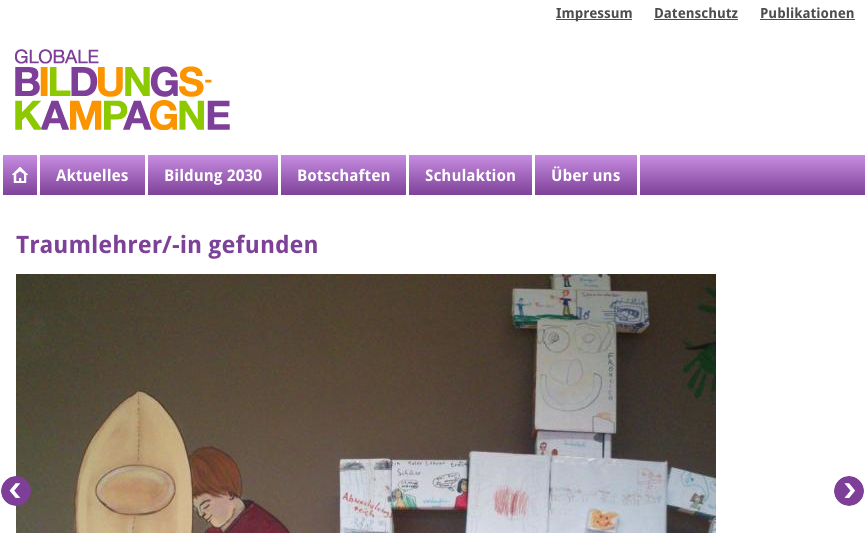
#include <cairo.h>
#include <math.h>
#include <stddef.h>


static void ink(cairo_t *ctx, unsigned color) {
    cairo_set_source_rgb(ctx, (color >> 16) / 255.0, (color >> 8 & 255) / 255.0, (color & 255) / 255.0);
}

static void paste(cairo_t *ctx, const char *path, double x, double y, double w, double h) {
    cairo_surface_t *image = cairo_image_surface_create_from_png(path);
    cairo_save(ctx);
    cairo_set_source_surface(ctx, image, x, y);
    cairo_rectangle(ctx, x, y, w, h);
    cairo_fill(ctx);
    cairo_restore(ctx);
    cairo_surface_destroy(image);
}

int main(void) {
    cairo_surface_t *surface = cairo_image_surface_create(CAIRO_FORMAT_RGB24, 865, 533);
    cairo_t *ctx = cairo_create(surface);
    cairo_font_options_t *options = cairo_font_options_create();
    cairo_font_options_set_hint_metrics(options, CAIRO_HINT_METRICS_OFF);
    cairo_font_options_set_hint_style(options, CAIRO_HINT_STYLE_NONE);
    cairo_set_font_options(ctx, options);
    cairo_set_miter_limit(ctx, 4);
    cairo_pattern_t *gradient;
    ink(ctx, 0xFFFFFF);
    cairo_paint(ctx);
    ink(ctx, 0x4D4D4D);
    cairo_rectangle(ctx, 556, 19, 76, 1);
    cairo_fill(ctx);
    cairo_select_font_face(ctx, "Droid Sans", CAIRO_FONT_SLANT_NORMAL, CAIRO_FONT_WEIGHT_BOLD);
    cairo_set_font_size(ctx, 14);
    cairo_move_to(ctx, 556, 18);
    cairo_show_text(ctx, "Impressum");
    cairo_move_to(ctx, 654, 18);
    cairo_show_text(ctx, "Datenschutz");
    cairo_rectangle(ctx, 654, 19, 84, 1);
    cairo_fill(ctx);
    cairo_move_to(ctx, 760, 18);
    cairo_show_text(ctx, "Publikationen");
    cairo_rectangle(ctx, 760, 19, 95, 1);
    cairo_fill(ctx);
    paste(ctx, "media/1.png", 15, 49, 215, 81);
    gradient = cairo_pattern_create_linear(433, 155, 433, 195);
    cairo_pattern_add_color_stop_rgba(gradient, 0, 0.78, 0.553, 0.882, 1);
    cairo_pattern_add_color_stop_rgba(gradient, 1, 0.494, 0.259, 0.6, 1);
    cairo_set_source(ctx, gradient);
    cairo_pattern_destroy(gradient);
    cairo_rectangle(ctx, 3, 155, 862, 40);
    cairo_fill(ctx);
    paste(ctx, "media/2.png", 12, 167, 16, 16);
    ink(ctx, 0xFFFFFF);
    cairo_rectangle(ctx, 37, 155, 3, 40);
    cairo_fill(ctx);
    cairo_rectangle(ctx, 145, 155, 3, 40);
    cairo_fill(ctx);
    cairo_set_font_size(ctx, 16);
    cairo_move_to(ctx, 56, 181);
    cairo_show_text(ctx, "Aktuelles");
    cairo_rectangle(ctx, 278, 155, 3, 40);
    cairo_fill(ctx);
    cairo_move_to(ctx, 164, 181);
    cairo_show_text(ctx, "Bildung 2030");
    cairo_rectangle(ctx, 406, 155, 3, 40);
    cairo_fill(ctx);
    cairo_move_to(ctx, 297, 181);
    cairo_show_text(ctx, "Botschaften");
    cairo_rectangle(ctx, 532, 155, 3, 40);
    cairo_fill(ctx);
    cairo_move_to(ctx, 425, 181);
    cairo_show_text(ctx, "Schulaktion");
    cairo_rectangle(ctx, 637, 155, 3, 40);
    cairo_fill(ctx);
    cairo_move_to(ctx, 551, 181);
    cairo_show_text(ctx, "Über uns");
    cairo_set_font_size(ctx, 24);
    ink(ctx, 0x7D4198);
    cairo_move_to(ctx, 16, 253);
    cairo_show_text(ctx, "Traumlehrer/-in gefunden");
    paste(ctx, "media/3.png", 16, 274, 700, 259);
    paste(ctx, "media/4.png", 1, 476, 30, 30);
    paste(ctx, "media/5.png", 834, 476, 30, 30);
    cairo_surface_write_to_png(surface, "image.png");
    cairo_font_options_destroy(options);
    cairo_destroy(ctx);
    cairo_surface_destroy(surface);
    return 0;
}
